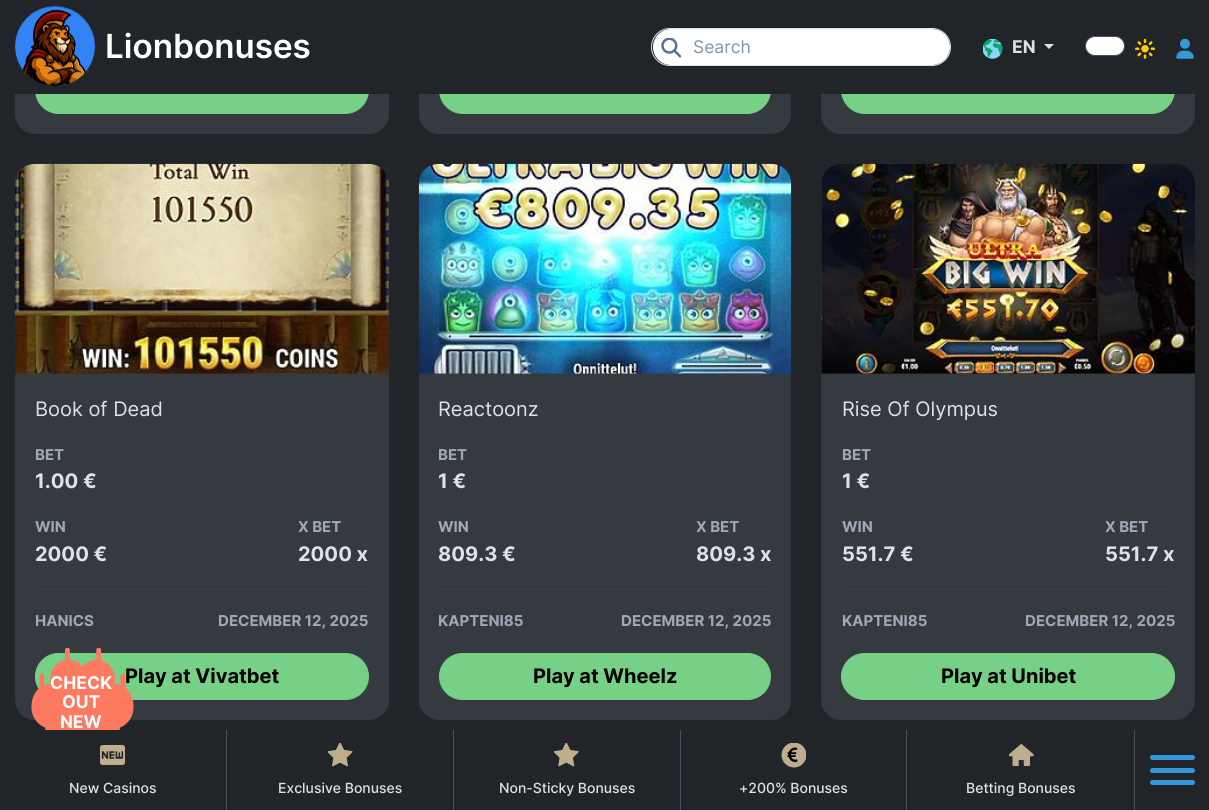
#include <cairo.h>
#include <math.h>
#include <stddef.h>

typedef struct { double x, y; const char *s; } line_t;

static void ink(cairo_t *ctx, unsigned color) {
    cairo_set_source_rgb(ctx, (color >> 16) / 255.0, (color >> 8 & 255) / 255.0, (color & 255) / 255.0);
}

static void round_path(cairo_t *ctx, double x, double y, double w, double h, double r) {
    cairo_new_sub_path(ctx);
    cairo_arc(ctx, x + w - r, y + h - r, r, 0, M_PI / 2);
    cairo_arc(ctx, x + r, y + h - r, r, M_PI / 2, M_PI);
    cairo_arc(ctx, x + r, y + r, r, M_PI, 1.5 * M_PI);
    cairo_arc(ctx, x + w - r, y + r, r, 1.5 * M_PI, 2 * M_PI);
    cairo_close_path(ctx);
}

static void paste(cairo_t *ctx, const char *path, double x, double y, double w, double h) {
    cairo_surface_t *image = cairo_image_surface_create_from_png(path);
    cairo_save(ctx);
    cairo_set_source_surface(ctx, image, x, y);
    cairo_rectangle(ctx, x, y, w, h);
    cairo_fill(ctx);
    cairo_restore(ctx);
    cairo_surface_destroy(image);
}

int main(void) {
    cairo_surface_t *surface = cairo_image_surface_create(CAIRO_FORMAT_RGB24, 1209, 810);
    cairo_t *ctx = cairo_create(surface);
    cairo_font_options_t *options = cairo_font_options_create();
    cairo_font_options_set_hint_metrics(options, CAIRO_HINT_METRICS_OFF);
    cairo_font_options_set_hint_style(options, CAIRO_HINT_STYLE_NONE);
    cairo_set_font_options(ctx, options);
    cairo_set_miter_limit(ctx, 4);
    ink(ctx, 0x212529);
    cairo_paint(ctx);
    ink(ctx, 0x343A40);
    round_path(ctx, 15, -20, 374, 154, 20);
    cairo_fill(ctx);
    ink(ctx, 0x76D085);
    round_path(ctx, 35.5, 66.5, 333, 47, 23.5);
    cairo_fill_preserve(ctx);
    cairo_set_line_width(ctx, 1);
    cairo_stroke(ctx);
    ink(ctx, 0x343A40);
    round_path(ctx, 419, -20, 372, 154, 20);
    cairo_fill(ctx);
    ink(ctx, 0x76D085);
    round_path(ctx, 439.5, 66.5, 331, 47, 23.5);
    cairo_fill_preserve(ctx);
    cairo_stroke(ctx);
    ink(ctx, 0x343A40);
    round_path(ctx, 821, -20, 374, 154, 20);
    cairo_fill(ctx);
    ink(ctx, 0x76D085);
    round_path(ctx, 841.5, 66.5, 333, 47, 23.5);
    cairo_fill_preserve(ctx);
    cairo_stroke(ctx);
    ink(ctx, 0x212529);
    cairo_rectangle(ctx, 15, 0, 1180, 93);
    cairo_fill(ctx);
    ink(ctx, 0x1F2327);
    cairo_rectangle(ctx, 15, 93, 1180, 1);
    cairo_fill(ctx);
    paste(ctx, "media/1.png", 15, 6, 80, 81);
    cairo_select_font_face(ctx, "Inter SemiBold", CAIRO_FONT_SLANT_NORMAL, CAIRO_FONT_WEIGHT_NORMAL);
    cairo_set_font_size(ctx, 33.25);
    ink(ctx, 0xFFFFFF);
    cairo_move_to(ctx, 105, 58);
    cairo_show_text(ctx, "Lionbonuses");
    round_path(ctx, 653, 29, 297, 36, 18);
    cairo_fill(ctx);
    round_path(ctx, 651.5, 28.5, 299, 37, 18.5);
    ink(ctx, 0xDEE2E6);
    cairo_stroke(ctx);
    paste(ctx, "media/2.png", 661, 38, 20, 20);
    cairo_select_font_face(ctx, "Inter", CAIRO_FONT_SLANT_NORMAL, CAIRO_FONT_WEIGHT_NORMAL);
    cairo_set_font_size(ctx, 17.5);
    ink(ctx, 0x8395AD);
    cairo_move_to(ctx, 693, 53);
    cairo_show_text(ctx, "Search");
    paste(ctx, "media/3.png", 983, 39, 20, 20);
    cairo_select_font_face(ctx, "Inter", CAIRO_FONT_SLANT_NORMAL, CAIRO_FONT_WEIGHT_BOLD);
    ink(ctx, 0xDEE2E6);
    cairo_move_to(ctx, 1012, 53);
    cairo_show_text(ctx, "EN");
    cairo_new_path(ctx);
    cairo_move_to(ctx, 1044, 44);
    cairo_line_to(ctx, 1054, 44);
    cairo_line_to(ctx, 1049, 49);
    cairo_close_path(ctx);
    cairo_fill(ctx);
    ink(ctx, 0xFFFFFF);
    round_path(ctx, 1085.5, 36.5, 39, 19, 9.5);
    cairo_fill_preserve(ctx);
    ink(ctx, 0x495057);
    cairo_stroke(ctx);
    paste(ctx, "media/4.png", 1135, 39, 20, 20);
    paste(ctx, "media/5.png", 1176, 39, 18, 20);
    ink(ctx, 0x343A40);
    round_path(ctx, 15, 164, 374, 556, 20);
    cairo_fill(ctx);
    paste(ctx, "media/6.png", 15, 163, 374, 211);
    cairo_select_font_face(ctx, "Inter", CAIRO_FONT_SLANT_NORMAL, CAIRO_FONT_WEIGHT_NORMAL);
    cairo_set_font_size(ctx, 20);
    ink(ctx, 0xDEE2E6);
    cairo_move_to(ctx, 35, 416);
    cairo_show_text(ctx, "Book of Dead");
    cairo_select_font_face(ctx, "Inter", CAIRO_FONT_SLANT_NORMAL, CAIRO_FONT_WEIGHT_BOLD);
    cairo_set_font_size(ctx, 15);
    ink(ctx, 0xA0A8B6);
    cairo_move_to(ctx, 35, 460);
    cairo_show_text(ctx, "BET");
    cairo_set_font_size(ctx, 20);
    ink(ctx, 0xDEE2E6);
    cairo_move_to(ctx, 35, 488);
    cairo_show_text(ctx, "1.00 €");
    cairo_set_font_size(ctx, 15);
    ink(ctx, 0xA0A8B6);
    cairo_move_to(ctx, 35, 532);
    cairo_show_text(ctx, "WIN");
    cairo_set_font_size(ctx, 20);
    ink(ctx, 0xDEE2E6);
    cairo_move_to(ctx, 35, 561);
    cairo_show_text(ctx, "2000 €");
    cairo_set_font_size(ctx, 15);
    ink(ctx, 0xA0A8B6);
    cairo_move_to(ctx, 298, 532);
    cairo_show_text(ctx, "X BET");
    cairo_set_font_size(ctx, 20);
    ink(ctx, 0xDEE2E6);
    cairo_move_to(ctx, 298, 561);
    cairo_show_text(ctx, "2000 x");
    ink(ctx, 0x394046);
    cairo_rectangle(ctx, 35, 589, 334, 1);
    cairo_fill(ctx);
    cairo_set_font_size(ctx, 15);
    ink(ctx, 0xA0A8B6);
    cairo_move_to(ctx, 35, 626);
    cairo_show_text(ctx, "HANICS");
    cairo_move_to(ctx, 218, 626);
    cairo_show_text(ctx, "DECEMBER 12, 2025");
    ink(ctx, 0x76D085);
    round_path(ctx, 35.5, 653.5, 333, 46, 23);
    cairo_fill_preserve(ctx);
    cairo_stroke(ctx);
    cairo_set_font_size(ctx, 20);
    ink(ctx, 0x000000);
    cairo_move_to(ctx, 125, 683);
    cairo_show_text(ctx, "Play at Vivatbet");
    ink(ctx, 0x343A40);
    round_path(ctx, 419, 164, 372, 556, 20);
    cairo_fill(ctx);
    paste(ctx, "media/7.png", 418, 163, 374, 211);
    cairo_select_font_face(ctx, "Inter", CAIRO_FONT_SLANT_NORMAL, CAIRO_FONT_WEIGHT_NORMAL);
    ink(ctx, 0xDEE2E6);
    cairo_move_to(ctx, 438, 416);
    cairo_show_text(ctx, "Reactoonz");
    cairo_select_font_face(ctx, "Inter", CAIRO_FONT_SLANT_NORMAL, CAIRO_FONT_WEIGHT_BOLD);
    cairo_set_font_size(ctx, 15);
    ink(ctx, 0xA0A8B6);
    cairo_move_to(ctx, 438, 460);
    cairo_show_text(ctx, "BET");
    cairo_set_font_size(ctx, 20);
    ink(ctx, 0xDEE2E6);
    cairo_move_to(ctx, 438, 488);
    cairo_show_text(ctx, "1 €");
    cairo_set_font_size(ctx, 15);
    ink(ctx, 0xA0A8B6);
    cairo_move_to(ctx, 438, 532);
    cairo_show_text(ctx, "WIN");
    cairo_set_font_size(ctx, 20);
    ink(ctx, 0xDEE2E6);
    cairo_move_to(ctx, 438, 561);
    cairo_show_text(ctx, "809.3 €");
    cairo_set_font_size(ctx, 15);
    ink(ctx, 0xA0A8B6);
    cairo_move_to(ctx, 696, 532);
    cairo_show_text(ctx, "X BET");
    cairo_set_font_size(ctx, 20);
    ink(ctx, 0xDEE2E6);
    cairo_move_to(ctx, 696, 561);
    cairo_show_text(ctx, "809.3 x");
    ink(ctx, 0x394046);
    cairo_rectangle(ctx, 439, 589, 332, 1);
    cairo_fill(ctx);
    cairo_set_font_size(ctx, 15);
    ink(ctx, 0xA0A8B6);
    cairo_move_to(ctx, 438, 626);
    cairo_show_text(ctx, "KAPTENI85");
    cairo_move_to(ctx, 621, 626);
    cairo_show_text(ctx, "DECEMBER 12, 2025");
    ink(ctx, 0x76D085);
    round_path(ctx, 439.5, 653.5, 331, 46, 23);
    cairo_fill_preserve(ctx);
    cairo_stroke(ctx);
    cairo_set_font_size(ctx, 20);
    ink(ctx, 0x000000);
    cairo_move_to(ctx, 533, 683);
    cairo_show_text(ctx, "Play at Wheelz");
    ink(ctx, 0x343A40);
    round_path(ctx, 821, 164, 374, 556, 20);
    cairo_fill(ctx);
    paste(ctx, "media/8.png", 821, 163, 374, 211);
    cairo_select_font_face(ctx, "Inter", CAIRO_FONT_SLANT_NORMAL, CAIRO_FONT_WEIGHT_NORMAL);
    ink(ctx, 0xDEE2E6);
    cairo_move_to(ctx, 842, 416);
    cairo_show_text(ctx, "Rise Of Olympus");
    cairo_select_font_face(ctx, "Inter", CAIRO_FONT_SLANT_NORMAL, CAIRO_FONT_WEIGHT_BOLD);
    cairo_set_font_size(ctx, 15);
    ink(ctx, 0xA0A8B6);
    cairo_move_to(ctx, 842, 460);
    cairo_show_text(ctx, "BET");
    cairo_set_font_size(ctx, 20);
    ink(ctx, 0xDEE2E6);
    cairo_move_to(ctx, 842, 488);
    cairo_show_text(ctx, "1 €");
    cairo_set_font_size(ctx, 15);
    ink(ctx, 0xA0A8B6);
    cairo_move_to(ctx, 842, 532);
    cairo_show_text(ctx, "WIN");
    cairo_set_font_size(ctx, 20);
    ink(ctx, 0xDEE2E6);
    cairo_move_to(ctx, 842, 561);
    cairo_show_text(ctx, "551.7 €");
    cairo_set_font_size(ctx, 15);
    ink(ctx, 0xA0A8B6);
    cairo_move_to(ctx, 1105, 532);
    cairo_show_text(ctx, "X BET");
    cairo_set_font_size(ctx, 20);
    ink(ctx, 0xDEE2E6);
    cairo_move_to(ctx, 1105, 561);
    cairo_show_text(ctx, "551.7 x");
    ink(ctx, 0x394046);
    cairo_rectangle(ctx, 841, 589, 334, 1);
    cairo_fill(ctx);
    cairo_set_font_size(ctx, 15);
    ink(ctx, 0xA0A8B6);
    cairo_move_to(ctx, 842, 626);
    cairo_show_text(ctx, "KAPTENI85");
    cairo_move_to(ctx, 1025, 626);
    cairo_show_text(ctx, "DECEMBER 12, 2025");
    ink(ctx, 0x76D085);
    round_path(ctx, 841.5, 653.5, 333, 46, 23);
    cairo_fill_preserve(ctx);
    cairo_stroke(ctx);
    cairo_set_font_size(ctx, 20);
    ink(ctx, 0x000000);
    cairo_move_to(ctx, 941, 683);
    cairo_show_text(ctx, "Play at Unibet");
    paste(ctx, "media/9.png", 31, 648, 103, 82);
    cairo_set_font_size(ctx, 17.5);
    ink(ctx, 0xFFFFFF);
    {
        static const line_t items[] = {
            {50, 689, "CHECK"},
            {62, 708, "OUT"},
            {60, 728, "NEW"},
        };
        for (size_t i = 0; i < sizeof items / sizeof *items; i++) {
            cairo_move_to(ctx, items[i].x, items[i].y);
            cairo_show_text(ctx, items[i].s);
        }
    }
    ink(ctx, 0x3498DB);
    round_path(ctx, 1150, 755, 45, 5, 2.5);
    cairo_fill(ctx);
    round_path(ctx, 1150, 768, 45, 5, 2.5);
    cairo_fill(ctx);
    round_path(ctx, 1150, 780, 45, 5, 2.5);
    cairo_fill(ctx);
    ink(ctx, 0x495057);
    cairo_rectangle(ctx, 226, 730, 1, 80);
    cairo_fill(ctx);
    paste(ctx, "media/10.png", 100, 745, 25, 20);
    cairo_select_font_face(ctx, "Inter Medium", CAIRO_FONT_SLANT_NORMAL, CAIRO_FONT_WEIGHT_NORMAL);
    cairo_set_font_size(ctx, 14);
    ink(ctx, 0xDEE2E6);
    cairo_move_to(ctx, 69, 793);
    cairo_show_text(ctx, "New Casinos");
    ink(ctx, 0x495057);
    cairo_rectangle(ctx, 453, 730, 1, 80);
    cairo_fill(ctx);
    paste(ctx, "media/11.png", 328, 743, 25, 24);
    ink(ctx, 0xDEE2E6);
    cairo_move_to(ctx, 278, 793);
    cairo_show_text(ctx, "Exclusive Bonuses");
    ink(ctx, 0x495057);
    cairo_rectangle(ctx, 680, 730, 1, 80);
    cairo_fill(ctx);
    paste(ctx, "media/12.png", 554, 743, 25, 24);
    ink(ctx, 0xDEE2E6);
    cairo_move_to(ctx, 499, 793);
    cairo_show_text(ctx, "Non-Sticky Bonuses");
    ink(ctx, 0x495057);
    cairo_rectangle(ctx, 906, 730, 1, 80);
    cairo_fill(ctx);
    paste(ctx, "media/13.png", 781, 743, 25, 25);
    ink(ctx, 0xDEE2E6);
    cairo_move_to(ctx, 739, 793);
    cairo_show_text(ctx, "+200% Bonuses");
    ink(ctx, 0x495057);
    cairo_rectangle(ctx, 1134, 730, 1, 80);
    cairo_fill(ctx);
    paste(ctx, "media/14.png", 1009, 744, 25, 22);
    ink(ctx, 0xDEE2E6);
    cairo_move_to(ctx, 966, 793);
    cairo_show_text(ctx, "Betting Bonuses");
    cairo_surface_write_to_png(surface, "image.png");
    cairo_font_options_destroy(options);
    cairo_destroy(ctx);
    cairo_surface_destroy(surface);
    return 0;
}
